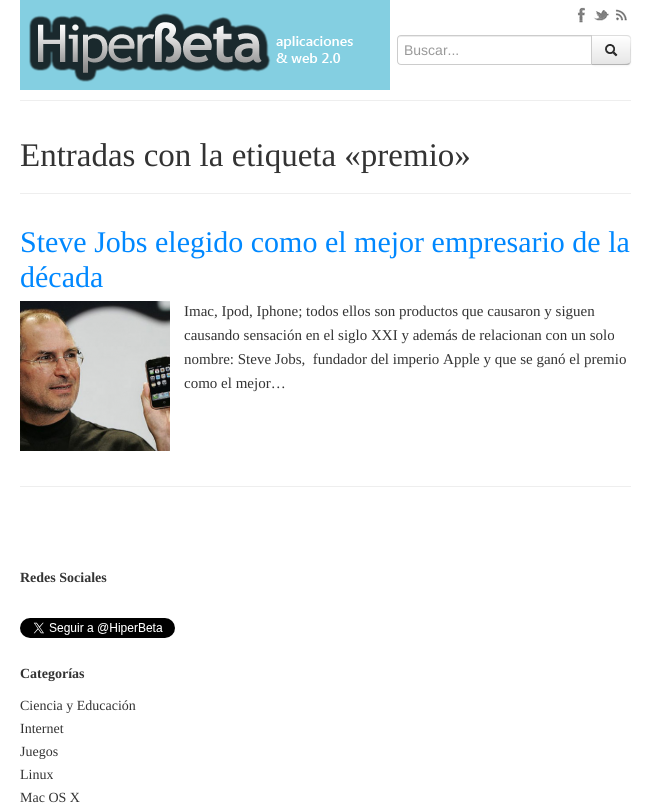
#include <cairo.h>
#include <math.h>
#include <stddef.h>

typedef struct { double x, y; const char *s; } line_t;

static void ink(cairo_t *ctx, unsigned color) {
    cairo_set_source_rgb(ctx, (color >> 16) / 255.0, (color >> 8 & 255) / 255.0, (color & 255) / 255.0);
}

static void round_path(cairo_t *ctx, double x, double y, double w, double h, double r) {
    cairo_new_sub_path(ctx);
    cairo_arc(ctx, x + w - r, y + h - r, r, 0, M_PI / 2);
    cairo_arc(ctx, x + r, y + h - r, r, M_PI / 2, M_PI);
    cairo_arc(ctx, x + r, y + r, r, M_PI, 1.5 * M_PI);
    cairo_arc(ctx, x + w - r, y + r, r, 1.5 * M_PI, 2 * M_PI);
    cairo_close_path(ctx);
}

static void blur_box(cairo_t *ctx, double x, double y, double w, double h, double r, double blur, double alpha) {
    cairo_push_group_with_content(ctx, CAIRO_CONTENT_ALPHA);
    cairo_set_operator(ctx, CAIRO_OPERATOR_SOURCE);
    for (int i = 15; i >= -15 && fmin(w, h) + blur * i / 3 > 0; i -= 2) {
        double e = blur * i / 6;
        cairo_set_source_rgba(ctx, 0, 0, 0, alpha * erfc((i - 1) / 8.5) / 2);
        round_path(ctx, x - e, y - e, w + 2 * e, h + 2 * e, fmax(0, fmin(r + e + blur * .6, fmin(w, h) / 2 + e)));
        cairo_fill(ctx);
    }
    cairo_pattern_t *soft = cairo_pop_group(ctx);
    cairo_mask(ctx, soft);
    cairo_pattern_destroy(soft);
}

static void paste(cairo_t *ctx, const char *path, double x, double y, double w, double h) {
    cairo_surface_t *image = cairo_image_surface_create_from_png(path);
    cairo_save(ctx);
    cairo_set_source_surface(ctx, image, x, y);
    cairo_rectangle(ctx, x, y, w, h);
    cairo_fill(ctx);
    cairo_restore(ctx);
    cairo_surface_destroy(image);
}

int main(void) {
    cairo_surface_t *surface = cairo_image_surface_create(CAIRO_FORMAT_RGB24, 651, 804);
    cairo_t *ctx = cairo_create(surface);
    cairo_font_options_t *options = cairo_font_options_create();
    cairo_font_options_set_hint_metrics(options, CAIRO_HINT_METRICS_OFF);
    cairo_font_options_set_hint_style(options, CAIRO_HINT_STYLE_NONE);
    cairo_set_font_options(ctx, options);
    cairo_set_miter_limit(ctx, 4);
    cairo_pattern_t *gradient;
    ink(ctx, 0xFFFFFF);
    cairo_paint(ctx);
    ink(ctx, 0x84CFE1);
    cairo_rectangle(ctx, 20, 0, 370, 90);
    cairo_fill(ctx);
    paste(ctx, "media/1.png", 29, 13, 324, 69);
    paste(ctx, "media/2.png", 577, 7, 8, 16);
    paste(ctx, "media/3.png", 593, 10, 16, 11);
    paste(ctx, "media/4.png", 615, 9, 12, 12);
    ink(ctx, 0x000000);
    blur_box(ctx, 591, 36, 40, 30, 4, 1, 0.05);
    ink(ctx, 0xF5F5F5);
    cairo_new_path(ctx);
    cairo_move_to(ctx, 591, 35);
    cairo_line_to(ctx, 627, 35);
    cairo_curve_to(ctx, 629, 35, 631, 37, 631, 39);
    cairo_line_to(ctx, 631, 61);
    cairo_curve_to(ctx, 631, 63, 629, 65, 627, 65);
    cairo_line_to(ctx, 591, 65);
    cairo_close_path(ctx);
    cairo_fill(ctx);
    cairo_save(ctx);
    cairo_new_path(ctx);
    cairo_move_to(ctx, 591, 35);
    cairo_line_to(ctx, 627, 35);
    cairo_curve_to(ctx, 629, 35, 631, 37, 631, 39);
    cairo_line_to(ctx, 631, 61);
    cairo_curve_to(ctx, 631, 63, 629, 65, 627, 65);
    cairo_line_to(ctx, 591, 65);
    cairo_close_path(ctx);
    cairo_clip(ctx);
    gradient = cairo_pattern_create_linear(611, 36, 611, 64);
    cairo_pattern_add_color_stop_rgba(gradient, 0, 1, 1, 1, 1);
    cairo_pattern_add_color_stop_rgba(gradient, 1, 0.902, 0.902, 0.902, 1);
    cairo_set_source(ctx, gradient);
    cairo_pattern_destroy(gradient);
    cairo_rectangle(ctx, 592, 36, 39, 28);
    cairo_fill(ctx);
    cairo_restore(ctx);
    cairo_set_source_rgba(ctx, 0, 0, 0, 0.1);
    cairo_new_path(ctx);
    cairo_move_to(ctx, 591, 35);
    cairo_line_to(ctx, 592, 36);
    cairo_line_to(ctx, 621, 36);
    cairo_curve_to(ctx, 625.5, 36, 628, 36, 629, 37);
    cairo_line_to(ctx, 630, 36);
    cairo_curve_to(ctx, 629, 35.5, 628, 35, 627, 35);
    cairo_close_path(ctx);
    cairo_fill(ctx);
    cairo_new_path(ctx);
    cairo_move_to(ctx, 631, 61);
    cairo_line_to(ctx, 631, 39);
    cairo_curve_to(ctx, 631, 38, 630.5, 37, 630, 36);
    cairo_line_to(ctx, 629, 37);
    cairo_curve_to(ctx, 630, 37.5, 630, 38.5, 630.5, 39);
    cairo_line_to(ctx, 630, 50);
    cairo_line_to(ctx, 630.5, 61);
    cairo_curve_to(ctx, 630, 61.5, 630, 62.5, 629, 63);
    cairo_line_to(ctx, 630, 64);
    cairo_curve_to(ctx, 630.5, 63, 631, 62, 631, 61);
    cairo_close_path(ctx);
    cairo_fill(ctx);
    ink(ctx, 0xB3B3B3);
    cairo_new_path(ctx);
    cairo_move_to(ctx, 627, 65);
    cairo_curve_to(ctx, 628, 65, 629, 64.5, 630, 64);
    cairo_line_to(ctx, 629, 63);
    cairo_curve_to(ctx, 628, 64, 625.5, 64, 621, 64);
    cairo_line_to(ctx, 592, 64);
    cairo_line_to(ctx, 591, 65);
    cairo_close_path(ctx);
    cairo_fill(ctx);
    ink(ctx, 0xFFFFFF);
    cairo_new_path(ctx);
    cairo_move_to(ctx, 401, 35);
    cairo_line_to(ctx, 592, 35);
    cairo_line_to(ctx, 592, 65);
    cairo_line_to(ctx, 401, 65);
    cairo_curve_to(ctx, 399, 65, 397, 63, 397, 61);
    cairo_line_to(ctx, 397, 39);
    cairo_curve_to(ctx, 397, 37, 399, 35, 401, 35);
    cairo_close_path(ctx);
    cairo_fill(ctx);
    ink(ctx, 0xECECEC);
    cairo_new_path(ctx);
    cairo_move_to(ctx, 401, 37);
    cairo_line_to(ctx, 591, 37);
    cairo_line_to(ctx, 591, 36);
    cairo_line_to(ctx, 401, 36);
    cairo_curve_to(ctx, 399, 36, 398, 38, 398, 40);
    cairo_curve_to(ctx, 398, 38, 399, 37, 401, 37);
    cairo_close_path(ctx);
    cairo_fill(ctx);
    cairo_new_path(ctx);
    cairo_move_to(ctx, 401, 35.5);
    cairo_line_to(ctx, 591.5, 35.5);
    cairo_line_to(ctx, 591.5, 64.5);
    cairo_line_to(ctx, 401, 64.5);
    cairo_curve_to(ctx, 399, 64.5, 397.5, 63, 397.5, 61);
    cairo_line_to(ctx, 397.5, 39);
    cairo_curve_to(ctx, 397.5, 37, 399, 35.5, 401, 35.5);
    cairo_close_path(ctx);
    ink(ctx, 0xCCCCCC);
    cairo_set_line_width(ctx, 1);
    cairo_stroke(ctx);
    cairo_select_font_face(ctx, "Liberation Sans", CAIRO_FONT_SLANT_NORMAL, CAIRO_FONT_WEIGHT_NORMAL);
    cairo_set_font_size(ctx, 14);
    ink(ctx, 0x999999);
    cairo_move_to(ctx, 404, 55);
    cairo_show_text(ctx, "Buscar...");
    paste(ctx, "media/5.png", 605, 44, 13, 13);
    ink(ctx, 0xEEEEEE);
    cairo_rectangle(ctx, 20, 100, 611, 1);
    cairo_fill(ctx);
    cairo_rectangle(ctx, 20, 193, 611, 1);
    cairo_fill(ctx);
    cairo_select_font_face(ctx, "Liberation Serif", CAIRO_FONT_SLANT_NORMAL, CAIRO_FONT_WEIGHT_NORMAL);
    cairo_set_font_size(ctx, 33);
    ink(ctx, 0x333333);
    cairo_move_to(ctx, 20, 166);
    cairo_show_text(ctx, "Entradas con la etiqueta «premio»");
    cairo_set_font_size(ctx, 30);
    ink(ctx, 0x0088FF);
    cairo_move_to(ctx, 20, 252);
    cairo_show_text(ctx, "Steve Jobs elegido como el mejor empresario de la");
    cairo_move_to(ctx, 20, 287);
    cairo_show_text(ctx, "década");
    paste(ctx, "media/6.png", 20, 301, 150, 150);
    cairo_set_font_size(ctx, 15);
    ink(ctx, 0x333333);
    {
        static const line_t items[] = {
            {184, 316, "Imac, Ipod, Iphone; todos ellos son productos que causaron y siguen"},
            {184, 340, "causando sensación en el siglo XXI y además de relacionan con un solo"},
            {184, 364, "nombre: Steve Jobs,  fundador del imperio Apple y que se ganó el premio"},
            {184, 388, "como el mejor…"},
        };
        for (size_t i = 0; i < sizeof items / sizeof *items; i++) {
            cairo_move_to(ctx, items[i].x, items[i].y);
            cairo_show_text(ctx, items[i].s);
        }
    }
    ink(ctx, 0xEEEEEE);
    cairo_rectangle(ctx, 20, 486, 611, 1);
    cairo_fill(ctx);
    cairo_select_font_face(ctx, "Liberation Serif", CAIRO_FONT_SLANT_NORMAL, CAIRO_FONT_WEIGHT_BOLD);
    cairo_set_font_size(ctx, 14);
    ink(ctx, 0x333333);
    cairo_move_to(ctx, 20, 582);
    cairo_show_text(ctx, "Redes Sociales");
    paste(ctx, "media/7.png", 20, 618, 155, 20);
    cairo_move_to(ctx, 20, 678);
    cairo_show_text(ctx, "Categorías");
    cairo_select_font_face(ctx, "Liberation Serif", CAIRO_FONT_SLANT_NORMAL, CAIRO_FONT_WEIGHT_NORMAL);
    {
        static const line_t items[] = {
            {20, 710, "Ciencia y Educación"},
            {20, 733, "Internet"},
            {20, 756, "Juegos"},
            {20, 779, "Linux"},
            {20, 802, "Mac OS X"},
        };
        for (size_t i = 0; i < sizeof items / sizeof *items; i++) {
            cairo_move_to(ctx, items[i].x, items[i].y);
            cairo_show_text(ctx, items[i].s);
        }
    }
    cairo_surface_write_to_png(surface, "image.png");
    cairo_font_options_destroy(options);
    cairo_destroy(ctx);
    cairo_surface_destroy(surface);
    return 0;
}
